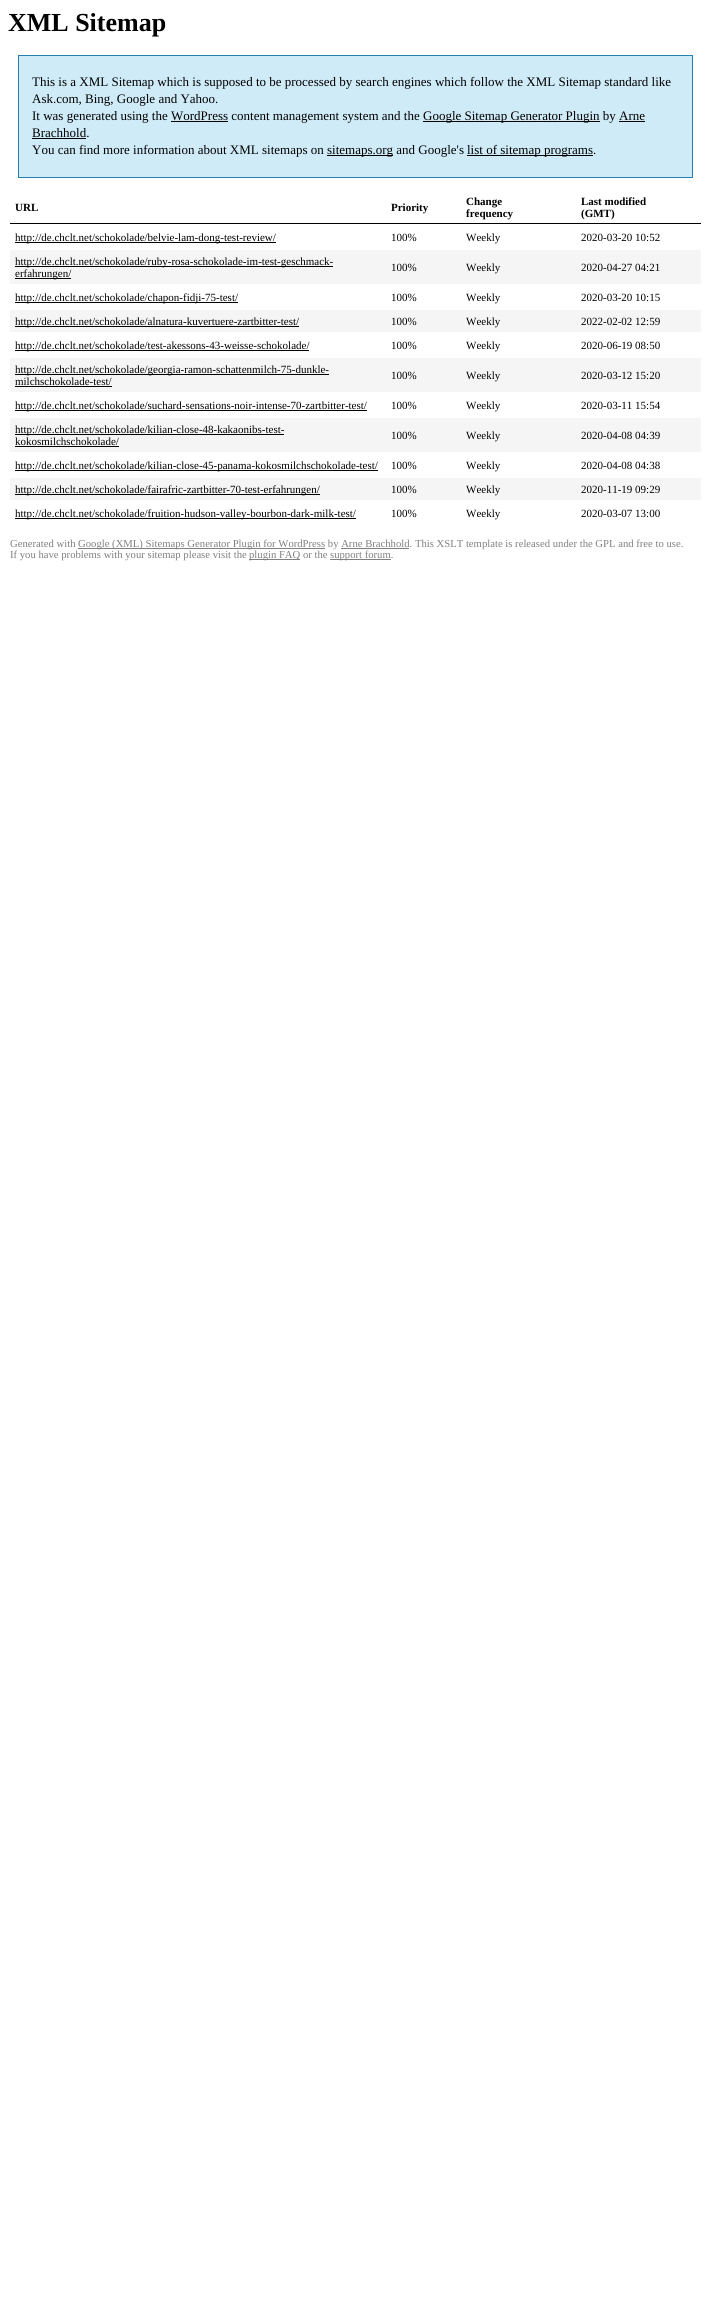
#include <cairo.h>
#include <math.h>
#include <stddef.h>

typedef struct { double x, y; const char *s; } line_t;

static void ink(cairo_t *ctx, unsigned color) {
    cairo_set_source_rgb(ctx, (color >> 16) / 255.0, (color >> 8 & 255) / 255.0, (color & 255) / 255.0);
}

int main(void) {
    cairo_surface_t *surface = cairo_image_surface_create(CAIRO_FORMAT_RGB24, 711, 2310);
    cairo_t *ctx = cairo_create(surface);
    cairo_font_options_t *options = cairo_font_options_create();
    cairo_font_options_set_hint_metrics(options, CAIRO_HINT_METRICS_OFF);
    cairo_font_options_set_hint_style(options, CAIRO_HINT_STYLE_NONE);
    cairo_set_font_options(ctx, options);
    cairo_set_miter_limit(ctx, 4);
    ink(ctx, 0xFFFFFF);
    cairo_paint(ctx);
    cairo_select_font_face(ctx, "Liberation Serif", CAIRO_FONT_SLANT_NORMAL, CAIRO_FONT_WEIGHT_BOLD);
    cairo_set_font_size(ctx, 26);
    ink(ctx, 0x000000);
    cairo_move_to(ctx, 8, 31);
    cairo_show_text(ctx, "XML Sitemap");
    ink(ctx, 0xCFEBF7);
    cairo_rectangle(ctx, 18.5, 55.5, 674, 122);
    cairo_fill_preserve(ctx);
    ink(ctx, 0x2580B2);
    cairo_set_line_width(ctx, 1);
    cairo_stroke(ctx);
    cairo_select_font_face(ctx, "Liberation Serif", CAIRO_FONT_SLANT_NORMAL, CAIRO_FONT_WEIGHT_NORMAL);
    cairo_set_font_size(ctx, 13);
    ink(ctx, 0x000000);
    {
        static const line_t items[] = {
            {32, 86, "This is a XML Sitemap which is supposed to be processed by search engines which follow the XML Sitemap standard like"},
            {32, 103, "Ask.com, Bing, Google and Yahoo."},
            {32, 120, "It was generated using the WordPress content management system and the"},
        };
        for (size_t i = 0; i < sizeof items / sizeof *items; i++) {
            cairo_move_to(ctx, items[i].x, items[i].y);
            cairo_show_text(ctx, items[i].s);
        }
    }
    cairo_rectangle(ctx, 423, 121, 177, 1);
    cairo_fill(ctx);
    cairo_move_to(ctx, 423, 120);
    cairo_show_text(ctx, "Google Sitemap Generator Plugin by Arne");
    cairo_rectangle(ctx, 171, 121, 57, 1);
    cairo_fill(ctx);
    cairo_move_to(ctx, 32, 137);
    cairo_show_text(ctx, "Brachhold.");
    cairo_rectangle(ctx, 619, 121, 26, 1);
    cairo_fill(ctx);
    cairo_rectangle(ctx, 32, 138, 54, 1);
    cairo_fill(ctx);
    cairo_move_to(ctx, 32, 154);
    cairo_show_text(ctx, "You can find more information about XML sitemaps on");
    cairo_rectangle(ctx, 327, 155, 66, 1);
    cairo_fill(ctx);
    cairo_move_to(ctx, 327, 154);
    cairo_show_text(ctx, "sitemaps.org and Google's");
    cairo_rectangle(ctx, 467, 155, 126, 1);
    cairo_fill(ctx);
    cairo_move_to(ctx, 467, 154);
    cairo_show_text(ctx, "list of sitemap programs.");
    cairo_rectangle(ctx, 10, 223, 691, 1);
    cairo_fill(ctx);
    cairo_select_font_face(ctx, "Liberation Serif", CAIRO_FONT_SLANT_NORMAL, CAIRO_FONT_WEIGHT_BOLD);
    cairo_set_font_size(ctx, 11);
    {
        static const line_t items[] = {
            {15, 211, "URL"},
            {391, 211, "Priority"},
            {466, 205, "Change"},
            {466, 217, "frequency"},
            {581, 205, "Last modified"},
            {581, 217, "(GMT)"},
        };
        for (size_t i = 0; i < sizeof items / sizeof *items; i++) {
            cairo_move_to(ctx, items[i].x, items[i].y);
            cairo_show_text(ctx, items[i].s);
        }
    }
    cairo_rectangle(ctx, 15, 242, 261, 1);
    cairo_fill(ctx);
    cairo_select_font_face(ctx, "Liberation Serif", CAIRO_FONT_SLANT_NORMAL, CAIRO_FONT_WEIGHT_NORMAL);
    {
        static const line_t items[] = {
            {15, 241, "http://de.chclt.net/schokolade/belvie-lam-dong-test-review/"},
            {391, 241, "100%"},
            {466, 241, "Weekly"},
            {581, 241, "2020-03-20 10:52"},
        };
        for (size_t i = 0; i < sizeof items / sizeof *items; i++) {
            cairo_move_to(ctx, items[i].x, items[i].y);
            cairo_show_text(ctx, items[i].s);
        }
    }
    ink(ctx, 0xF5F5F5);
    cairo_rectangle(ctx, 10, 250, 691, 34);
    cairo_fill(ctx);
    ink(ctx, 0x000000);
    cairo_rectangle(ctx, 15, 266, 318, 1);
    cairo_fill(ctx);
    cairo_move_to(ctx, 15, 265);
    cairo_show_text(ctx, "http://de.chclt.net/schokolade/ruby-rosa-schokolade-im-test-geschmack-");
    cairo_rectangle(ctx, 15, 278, 56, 1);
    cairo_fill(ctx);
    {
        static const line_t items[] = {
            {15, 277, "erfahrungen/"},
            {391, 271, "100%"},
            {466, 271, "Weekly"},
            {581, 271, "2020-04-27 04:21"},
        };
        for (size_t i = 0; i < sizeof items / sizeof *items; i++) {
            cairo_move_to(ctx, items[i].x, items[i].y);
            cairo_show_text(ctx, items[i].s);
        }
    }
    cairo_rectangle(ctx, 15, 302, 223, 1);
    cairo_fill(ctx);
    {
        static const line_t items[] = {
            {15, 301, "http://de.chclt.net/schokolade/chapon-fidji-75-test/"},
            {391, 301, "100%"},
            {466, 301, "Weekly"},
            {581, 301, "2020-03-20 10:15"},
        };
        for (size_t i = 0; i < sizeof items / sizeof *items; i++) {
            cairo_move_to(ctx, items[i].x, items[i].y);
            cairo_show_text(ctx, items[i].s);
        }
    }
    ink(ctx, 0xF5F5F5);
    cairo_rectangle(ctx, 10, 310, 691, 22);
    cairo_fill(ctx);
    ink(ctx, 0x000000);
    cairo_rectangle(ctx, 15, 326, 284, 1);
    cairo_fill(ctx);
    {
        static const line_t items[] = {
            {15, 325, "http://de.chclt.net/schokolade/alnatura-kuvertuere-zartbitter-test/"},
            {391, 325, "100%"},
            {466, 325, "Weekly"},
            {581, 325, "2022-02-02 12:59"},
        };
        for (size_t i = 0; i < sizeof items / sizeof *items; i++) {
            cairo_move_to(ctx, items[i].x, items[i].y);
            cairo_show_text(ctx, items[i].s);
        }
    }
    cairo_rectangle(ctx, 15, 350, 294, 1);
    cairo_fill(ctx);
    {
        static const line_t items[] = {
            {15, 349, "http://de.chclt.net/schokolade/test-akessons-43-weisse-schokolade/"},
            {391, 349, "100%"},
            {466, 349, "Weekly"},
            {581, 349, "2020-06-19 08:50"},
        };
        for (size_t i = 0; i < sizeof items / sizeof *items; i++) {
            cairo_move_to(ctx, items[i].x, items[i].y);
            cairo_show_text(ctx, items[i].s);
        }
    }
    ink(ctx, 0xF5F5F5);
    cairo_rectangle(ctx, 10, 358, 691, 34);
    cairo_fill(ctx);
    ink(ctx, 0x000000);
    cairo_rectangle(ctx, 15, 374, 314, 1);
    cairo_fill(ctx);
    cairo_move_to(ctx, 15, 373);
    cairo_show_text(ctx, "http://de.chclt.net/schokolade/georgia-ramon-schattenmilch-75-dunkle-");
    cairo_move_to(ctx, 15, 385);
    cairo_show_text(ctx, "milchschokolade-test/");
    cairo_rectangle(ctx, 15, 386, 97, 1);
    cairo_fill(ctx);
    {
        static const line_t items[] = {
            {391, 379, "100%"},
            {466, 379, "Weekly"},
            {581, 379, "2020-03-12 15:20"},
        };
        for (size_t i = 0; i < sizeof items / sizeof *items; i++) {
            cairo_move_to(ctx, items[i].x, items[i].y);
            cairo_show_text(ctx, items[i].s);
        }
    }
    cairo_rectangle(ctx, 15, 410, 352, 1);
    cairo_fill(ctx);
    {
        static const line_t items[] = {
            {15, 409, "http://de.chclt.net/schokolade/suchard-sensations-noir-intense-70-zartbitter-test/"},
            {391, 409, "100%"},
            {466, 409, "Weekly"},
            {581, 409, "2020-03-11 15:54"},
        };
        for (size_t i = 0; i < sizeof items / sizeof *items; i++) {
            cairo_move_to(ctx, items[i].x, items[i].y);
            cairo_show_text(ctx, items[i].s);
        }
    }
    ink(ctx, 0xF5F5F5);
    cairo_rectangle(ctx, 10, 418, 691, 34);
    cairo_fill(ctx);
    ink(ctx, 0x000000);
    cairo_rectangle(ctx, 15, 434, 269, 1);
    cairo_fill(ctx);
    cairo_move_to(ctx, 15, 433);
    cairo_show_text(ctx, "http://de.chclt.net/schokolade/kilian-close-48-kakaonibs-test-");
    cairo_move_to(ctx, 15, 445);
    cairo_show_text(ctx, "kokosmilchschokolade/");
    cairo_rectangle(ctx, 15, 446, 104, 1);
    cairo_fill(ctx);
    {
        static const line_t items[] = {
            {391, 439, "100%"},
            {466, 439, "Weekly"},
            {581, 439, "2020-04-08 04:39"},
        };
        for (size_t i = 0; i < sizeof items / sizeof *items; i++) {
            cairo_move_to(ctx, items[i].x, items[i].y);
            cairo_show_text(ctx, items[i].s);
        }
    }
    cairo_rectangle(ctx, 15, 470, 363, 1);
    cairo_fill(ctx);
    {
        static const line_t items[] = {
            {15, 469, "http://de.chclt.net/schokolade/kilian-close-45-panama-kokosmilchschokolade-test/"},
            {391, 469, "100%"},
            {466, 469, "Weekly"},
            {581, 469, "2020-04-08 04:38"},
        };
        for (size_t i = 0; i < sizeof items / sizeof *items; i++) {
            cairo_move_to(ctx, items[i].x, items[i].y);
            cairo_show_text(ctx, items[i].s);
        }
    }
    ink(ctx, 0xF5F5F5);
    cairo_rectangle(ctx, 10, 478, 691, 22);
    cairo_fill(ctx);
    ink(ctx, 0x000000);
    cairo_rectangle(ctx, 15, 494, 305, 1);
    cairo_fill(ctx);
    {
        static const line_t items[] = {
            {15, 493, "http://de.chclt.net/schokolade/fairafric-zartbitter-70-test-erfahrungen/"},
            {391, 493, "100%"},
            {466, 493, "Weekly"},
            {581, 493, "2020-11-19 09:29"},
        };
        for (size_t i = 0; i < sizeof items / sizeof *items; i++) {
            cairo_move_to(ctx, items[i].x, items[i].y);
            cairo_show_text(ctx, items[i].s);
        }
    }
    cairo_rectangle(ctx, 15, 518, 341, 1);
    cairo_fill(ctx);
    {
        static const line_t items[] = {
            {15, 517, "http://de.chclt.net/schokolade/fruition-hudson-valley-bourbon-dark-milk-test/"},
            {391, 517, "100%"},
            {466, 517, "Weekly"},
            {581, 517, "2020-03-07 13:00"},
        };
        for (size_t i = 0; i < sizeof items / sizeof *items; i++) {
            cairo_move_to(ctx, items[i].x, items[i].y);
            cairo_show_text(ctx, items[i].s);
        }
    }
    cairo_set_font_size(ctx, 10.67);
    ink(ctx, 0x808080);
    cairo_move_to(ctx, 10, 547);
    cairo_show_text(ctx, "Generated with");
    cairo_rectangle(ctx, 78, 548, 247, 1);
    cairo_fill(ctx);
    cairo_move_to(ctx, 78, 547);
    cairo_show_text(ctx, "Google (XML) Sitemaps Generator Plugin for WordPress by Arne Brachhold. This XSLT template is released under the GPL and free to use.");
    cairo_rectangle(ctx, 341, 548, 68, 1);
    cairo_fill(ctx);
    cairo_move_to(ctx, 10, 558);
    cairo_show_text(ctx, "If you have problems with your sitemap please visit the");
    cairo_rectangle(ctx, 249, 559, 51, 1);
    cairo_fill(ctx);
    cairo_move_to(ctx, 249, 558);
    cairo_show_text(ctx, "plugin FAQ or the");
    cairo_rectangle(ctx, 330, 559, 61, 1);
    cairo_fill(ctx);
    cairo_move_to(ctx, 330, 558);
    cairo_show_text(ctx, "support forum.");
    cairo_surface_write_to_png(surface, "image.png");
    cairo_font_options_destroy(options);
    cairo_destroy(ctx);
    cairo_surface_destroy(surface);
    return 0;
}
